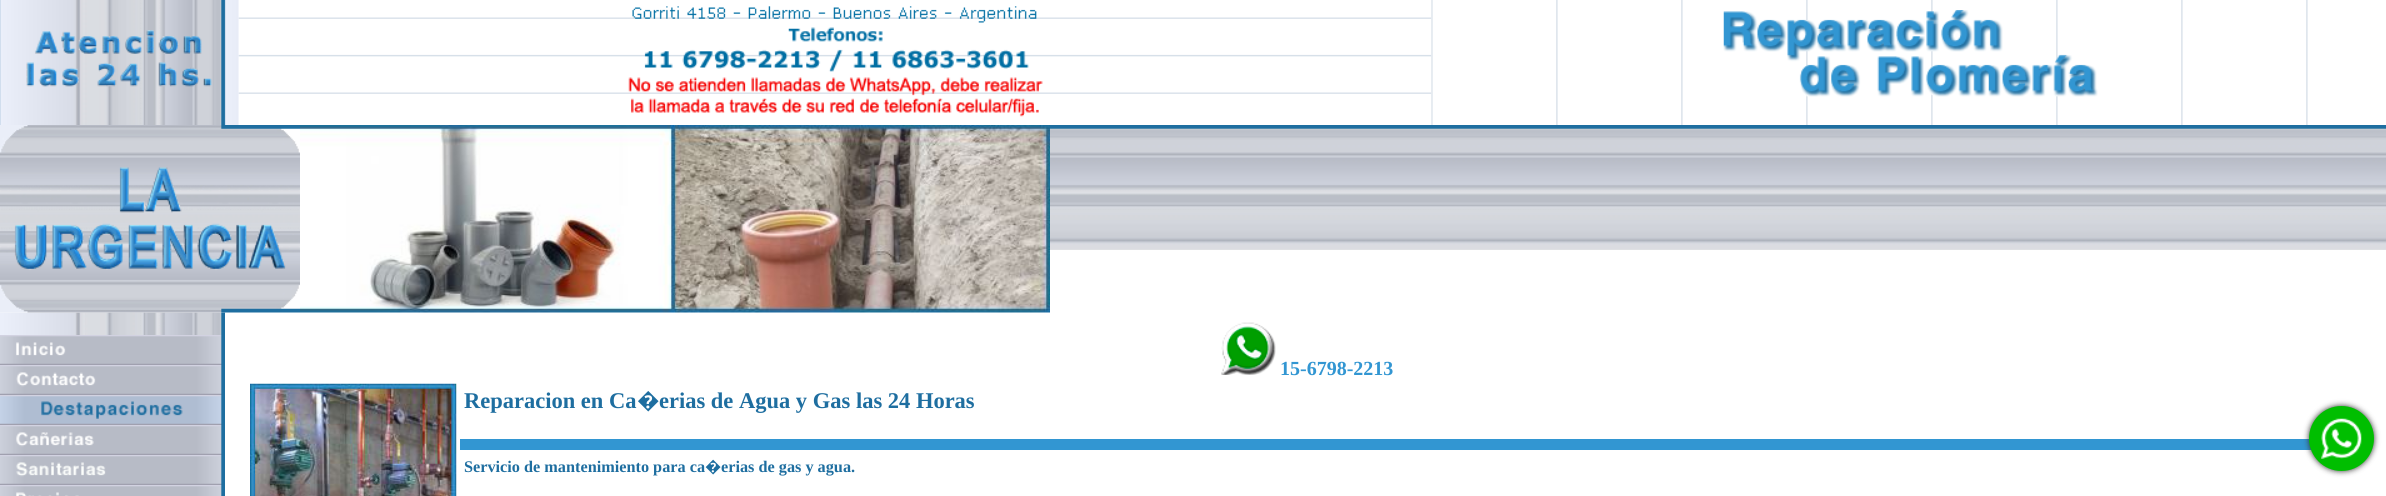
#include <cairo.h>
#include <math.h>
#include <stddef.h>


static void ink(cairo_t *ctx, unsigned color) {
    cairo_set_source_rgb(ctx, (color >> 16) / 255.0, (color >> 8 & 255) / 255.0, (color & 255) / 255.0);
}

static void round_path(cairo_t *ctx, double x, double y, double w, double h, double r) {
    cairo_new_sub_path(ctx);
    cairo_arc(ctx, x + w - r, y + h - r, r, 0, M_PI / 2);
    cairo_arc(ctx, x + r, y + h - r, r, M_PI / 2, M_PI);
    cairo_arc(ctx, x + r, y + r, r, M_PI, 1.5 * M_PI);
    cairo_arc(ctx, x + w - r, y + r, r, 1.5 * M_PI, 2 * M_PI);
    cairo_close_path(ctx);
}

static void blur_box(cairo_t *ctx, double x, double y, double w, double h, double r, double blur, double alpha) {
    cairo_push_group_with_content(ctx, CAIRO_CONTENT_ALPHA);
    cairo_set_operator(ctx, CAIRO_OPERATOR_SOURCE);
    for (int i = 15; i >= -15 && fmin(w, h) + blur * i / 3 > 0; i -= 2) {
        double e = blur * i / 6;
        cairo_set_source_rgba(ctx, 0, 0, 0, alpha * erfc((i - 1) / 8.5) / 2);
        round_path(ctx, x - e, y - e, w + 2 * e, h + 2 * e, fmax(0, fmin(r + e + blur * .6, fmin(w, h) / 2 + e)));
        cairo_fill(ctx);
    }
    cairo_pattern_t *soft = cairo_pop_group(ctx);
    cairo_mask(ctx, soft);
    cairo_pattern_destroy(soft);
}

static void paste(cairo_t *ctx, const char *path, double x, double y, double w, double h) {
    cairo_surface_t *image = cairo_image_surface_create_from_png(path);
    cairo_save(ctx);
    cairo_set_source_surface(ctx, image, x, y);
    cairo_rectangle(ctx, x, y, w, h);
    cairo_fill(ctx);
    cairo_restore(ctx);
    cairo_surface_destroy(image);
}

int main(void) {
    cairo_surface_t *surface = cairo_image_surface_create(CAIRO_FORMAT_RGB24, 2386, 496);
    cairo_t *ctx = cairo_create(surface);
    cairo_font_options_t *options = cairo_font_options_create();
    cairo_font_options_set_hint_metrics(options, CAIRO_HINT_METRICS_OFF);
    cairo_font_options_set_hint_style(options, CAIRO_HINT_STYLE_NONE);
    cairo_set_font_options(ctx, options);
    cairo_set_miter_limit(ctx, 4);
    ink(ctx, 0xFFFFFF);
    cairo_paint(ctx);
    paste(ctx, "media/1.png", 0, 0, 239, 125);
    paste(ctx, "media/2.png", 26, 30, 186, 57);
    paste(ctx, "media/3.png", 238, 0, 1194, 125);
    paste(ctx, "media/4.png", 628, 6, 415, 111);
    paste(ctx, "media/5.png", 1431, 0, 877, 125);
    paste(ctx, "media/6.png", 1723, 10, 375, 87);
    paste(ctx, "media/10.png", 0, 312, 225, 184);
    paste(ctx, "media/7.png", 0, 125, 300, 188);
    paste(ctx, "media/8.png", 1050, 125, 1336, 125);
    paste(ctx, "media/9.png", 300, 125, 750, 188);
    paste(ctx, "media/11.png", 0, 335, 222, 30);
    paste(ctx, "media/12.png", 0, 365, 222, 30);
    paste(ctx, "media/13.png", 0, 395, 222, 30);
    paste(ctx, "media/14.png", 0, 425, 222, 30);
    paste(ctx, "media/15.png", 0, 455, 222, 30);
    paste(ctx, "media/16.png", 0, 485, 222, 11);
    paste(ctx, "media/17.png", 1221, 322, 55, 53);
    cairo_select_font_face(ctx, "Liberation Serif", CAIRO_FONT_SLANT_NORMAL, CAIRO_FONT_WEIGHT_BOLD);
    cairo_set_font_size(ctx, 20);
    ink(ctx, 0x3296D2);
    cairo_move_to(ctx, 1280, 375);
    cairo_show_text(ctx, "15-6798-2213");
    paste(ctx, "media/18.png", 250, 383, 207, 113);
    cairo_set_font_size(ctx, 22.5);
    ink(ctx, 0x1E6EA0);
    cairo_move_to(ctx, 464, 408);
    cairo_show_text(ctx, "Reparacion en Ca");
    cairo_select_font_face(ctx, "Noto Sans", CAIRO_FONT_SLANT_NORMAL, CAIRO_FONT_WEIGHT_BOLD);
    cairo_move_to(ctx, 637, 408);
    cairo_show_text(ctx, "�");
    cairo_select_font_face(ctx, "Liberation Serif", CAIRO_FONT_SLANT_NORMAL, CAIRO_FONT_WEIGHT_BOLD);
    cairo_move_to(ctx, 659, 408);
    cairo_show_text(ctx, "erias de Agua y Gas las 24 Horas");
    ink(ctx, 0x3296D2);
    cairo_rectangle(ctx, 460, 439, 1852, 11);
    cairo_fill(ctx);
    cairo_set_font_size(ctx, 16.25);
    ink(ctx, 0x1E6EA0);
    cairo_move_to(ctx, 464, 472);
    cairo_show_text(ctx, "Servicio de mantenimiento para ca");
    cairo_select_font_face(ctx, "Noto Sans", CAIRO_FONT_SLANT_NORMAL, CAIRO_FONT_WEIGHT_BOLD);
    cairo_move_to(ctx, 705, 472);
    cairo_show_text(ctx, "�");
    cairo_select_font_face(ctx, "Liberation Serif", CAIRO_FONT_SLANT_NORMAL, CAIRO_FONT_WEIGHT_BOLD);
    cairo_move_to(ctx, 721, 472);
    cairo_show_text(ctx, "erias de gas y agua.");
    ink(ctx, 0x333333);
    blur_box(ctx, 2309, 406, 65, 65, 32.5, 3, 1);
    ink(ctx, 0x00BE00);
    cairo_arc(ctx, 2341.5, 438.5, 32.5, 0, 2 * M_PI);
    cairo_fill(ctx);
    paste(ctx, "media/19.png", 2321, 418, 41, 41);
    cairo_surface_write_to_png(surface, "image.png");
    cairo_font_options_destroy(options);
    cairo_destroy(ctx);
    cairo_surface_destroy(surface);
    return 0;
}
